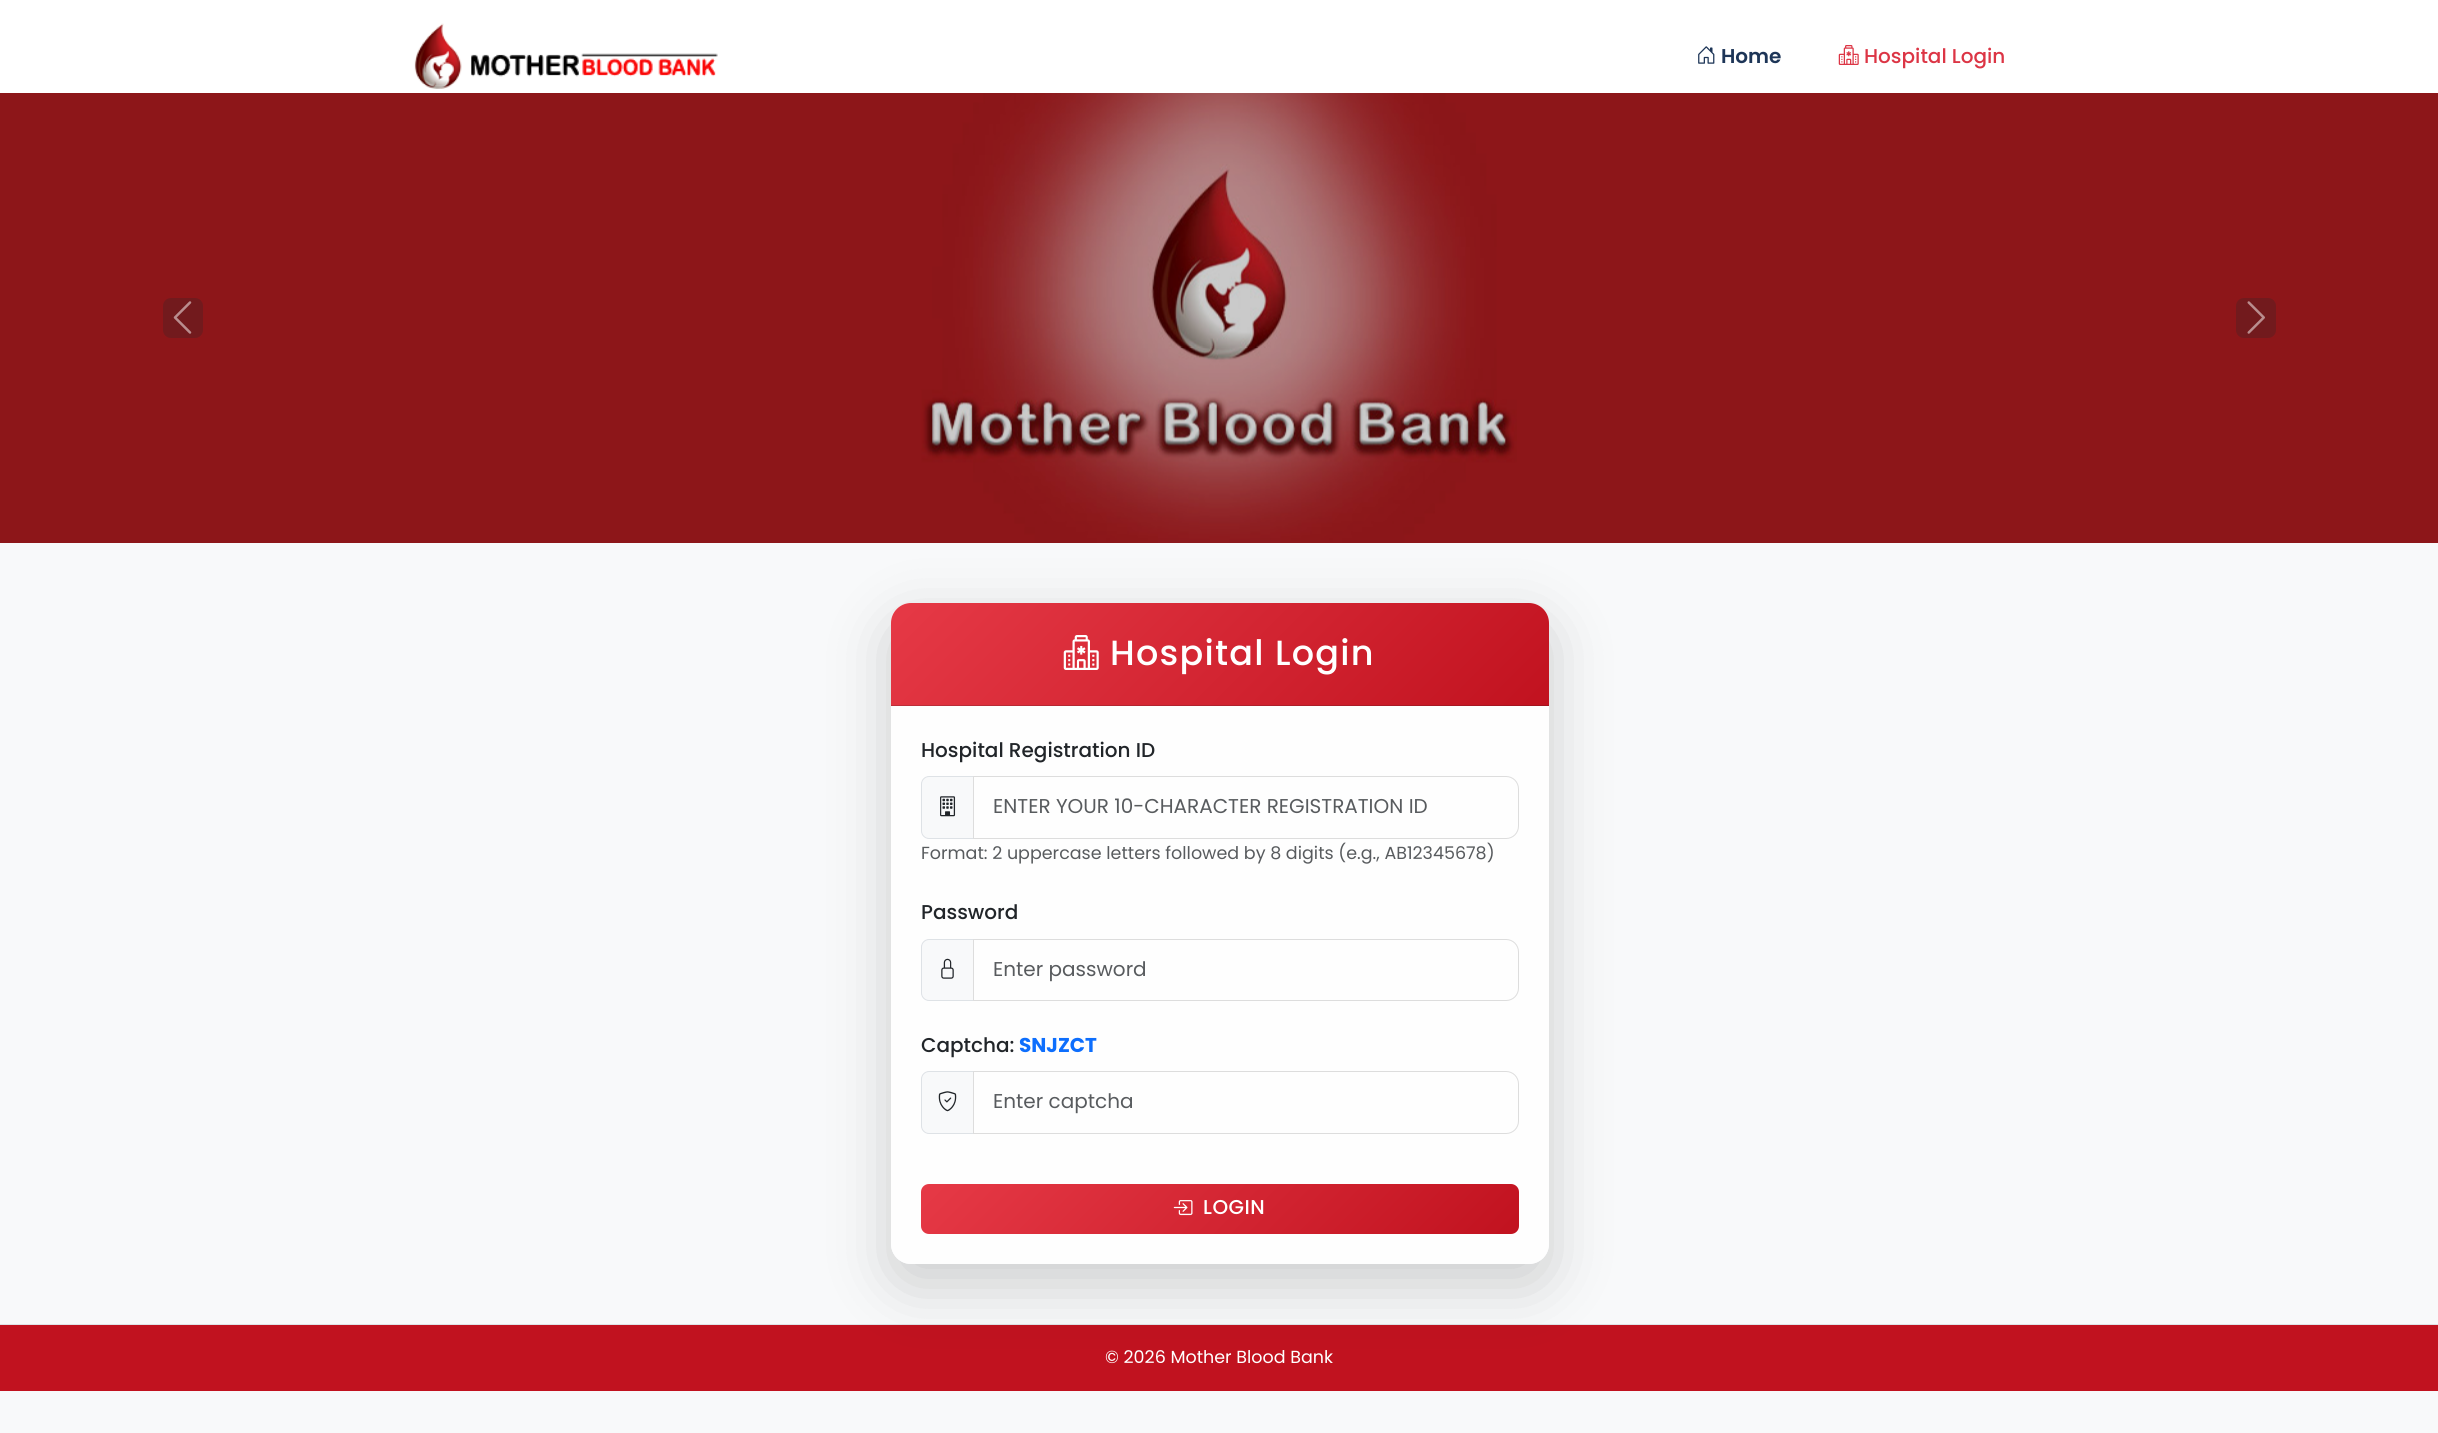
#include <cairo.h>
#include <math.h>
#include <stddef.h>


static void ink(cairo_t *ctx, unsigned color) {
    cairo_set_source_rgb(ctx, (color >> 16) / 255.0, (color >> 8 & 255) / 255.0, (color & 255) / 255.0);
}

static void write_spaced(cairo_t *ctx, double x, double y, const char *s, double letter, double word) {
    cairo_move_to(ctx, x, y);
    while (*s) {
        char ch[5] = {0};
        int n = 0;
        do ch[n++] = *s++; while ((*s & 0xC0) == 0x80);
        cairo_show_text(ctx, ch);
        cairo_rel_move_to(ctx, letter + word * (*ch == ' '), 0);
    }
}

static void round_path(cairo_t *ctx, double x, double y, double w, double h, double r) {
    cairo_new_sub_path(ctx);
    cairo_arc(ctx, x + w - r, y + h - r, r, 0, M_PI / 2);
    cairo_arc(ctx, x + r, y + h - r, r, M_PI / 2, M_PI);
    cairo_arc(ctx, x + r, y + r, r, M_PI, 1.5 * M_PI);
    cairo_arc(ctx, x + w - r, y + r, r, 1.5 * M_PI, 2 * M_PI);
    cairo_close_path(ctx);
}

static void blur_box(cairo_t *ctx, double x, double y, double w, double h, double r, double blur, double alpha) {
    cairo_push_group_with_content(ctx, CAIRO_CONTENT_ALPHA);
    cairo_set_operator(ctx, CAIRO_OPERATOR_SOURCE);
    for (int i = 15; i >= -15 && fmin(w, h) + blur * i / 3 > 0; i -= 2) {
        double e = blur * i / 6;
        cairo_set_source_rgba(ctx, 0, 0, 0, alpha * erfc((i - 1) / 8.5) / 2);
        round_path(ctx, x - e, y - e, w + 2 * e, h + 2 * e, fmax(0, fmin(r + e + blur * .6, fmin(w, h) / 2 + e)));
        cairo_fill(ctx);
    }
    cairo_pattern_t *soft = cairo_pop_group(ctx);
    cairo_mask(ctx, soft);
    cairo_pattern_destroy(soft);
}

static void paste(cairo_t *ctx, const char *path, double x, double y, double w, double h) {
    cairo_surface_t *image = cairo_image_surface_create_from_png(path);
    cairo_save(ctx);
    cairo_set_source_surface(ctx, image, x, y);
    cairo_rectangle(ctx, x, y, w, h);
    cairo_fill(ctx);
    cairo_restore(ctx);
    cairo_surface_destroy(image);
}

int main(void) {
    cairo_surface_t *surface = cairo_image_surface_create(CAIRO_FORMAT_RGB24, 2438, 1433);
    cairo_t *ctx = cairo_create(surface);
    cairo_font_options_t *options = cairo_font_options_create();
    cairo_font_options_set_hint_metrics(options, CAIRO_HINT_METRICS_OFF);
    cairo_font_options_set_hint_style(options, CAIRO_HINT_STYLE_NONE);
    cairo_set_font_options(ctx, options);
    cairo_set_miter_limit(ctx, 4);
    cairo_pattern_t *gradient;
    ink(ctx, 0xF8F9FA);
    cairo_paint(ctx);
    cairo_set_source_rgba(ctx, 1, 1, 1, 0.95);
    cairo_rectangle(ctx, 0, 0, 2438, 93);
    cairo_fill(ctx);
    paste(ctx, "media/1.png", 414, 23, 304, 66);
    paste(ctx, "media/2.png", 1698, 46, 17, 18);
    cairo_select_font_face(ctx, "Poppins SemiBold", CAIRO_FONT_SLANT_NORMAL, CAIRO_FONT_WEIGHT_NORMAL);
    cairo_set_font_size(ctx, 20);
    ink(ctx, 0x1D3557);
    cairo_move_to(ctx, 1721, 63);
    cairo_show_text(ctx, "Home");
    paste(ctx, "media/3.png", 1838, 45, 21, 20);
    cairo_select_font_face(ctx, "Poppins Medium", CAIRO_FONT_SLANT_NORMAL, CAIRO_FONT_WEIGHT_NORMAL);
    ink(ctx, 0xDC3545);
    cairo_move_to(ctx, 1864, 63);
    cairo_show_text(ctx, "Hospital Login");
    paste(ctx, "media/4.png", 0, 93, 2438, 450);
    ink(ctx, 0x721A1D);
    round_path(ctx, 163, 298, 40, 40, 8);
    cairo_fill(ctx);
    paste(ctx, "media/5.png", 173, 301, 19, 33);
    round_path(ctx, 2236, 298, 40, 40, 8);
    cairo_fill(ctx);
    paste(ctx, "media/6.png", 2247, 301, 18, 33);
    ink(ctx, 0xC1121F);
    cairo_rectangle(ctx, 0, 1325, 2438, 66);
    cairo_fill(ctx);
    ink(ctx, 0xDEE2E6);
    cairo_rectangle(ctx, 0, 1324, 2438, 1);
    cairo_fill(ctx);
    cairo_save(ctx);
    cairo_set_fill_rule(ctx, CAIRO_FILL_RULE_EVEN_ODD);
    cairo_new_path(ctx);
    cairo_move_to(ctx, 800, 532);
    cairo_line_to(ctx, 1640, 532);
    cairo_line_to(ctx, 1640, 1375);
    cairo_line_to(ctx, 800, 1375);
    cairo_close_path(ctx);
    cairo_move_to(ctx, 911, 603);
    cairo_line_to(ctx, 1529, 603);
    cairo_curve_to(ctx, 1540, 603, 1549, 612, 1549, 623);
    cairo_line_to(ctx, 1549, 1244);
    cairo_curve_to(ctx, 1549, 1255, 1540, 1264, 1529, 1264);
    cairo_line_to(ctx, 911, 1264);
    cairo_curve_to(ctx, 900, 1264, 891, 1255, 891, 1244);
    cairo_line_to(ctx, 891, 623);
    cairo_curve_to(ctx, 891, 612, 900, 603, 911, 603);
    cairo_close_path(ctx);
    cairo_clip(ctx);
    ink(ctx, 0x000000);
    blur_box(ctx, 891, 623, 658, 661, 20, 30, 0.18);
    cairo_restore(ctx);
    cairo_set_source_rgba(ctx, 1, 1, 1, 0.8);
    round_path(ctx, 891, 603, 658, 661, 20);
    cairo_fill(ctx);
    gradient = cairo_pattern_create_linear(1030, 464, 1410, 844);
    cairo_pattern_add_color_stop_rgba(gradient, 0, 0.902, 0.224, 0.275, 1);
    cairo_pattern_add_color_stop_rgba(gradient, 1, 0.757, 0.071, 0.122, 1);
    cairo_set_source(ctx, gradient);
    cairo_pattern_destroy(gradient);
    cairo_new_path(ctx);
    cairo_move_to(ctx, 911, 603);
    cairo_line_to(ctx, 1529, 603);
    cairo_curve_to(ctx, 1540, 603, 1549, 612, 1549, 623);
    cairo_line_to(ctx, 1549, 705);
    cairo_line_to(ctx, 891, 705);
    cairo_line_to(ctx, 891, 623);
    cairo_curve_to(ctx, 891, 612, 900, 603, 911, 603);
    cairo_close_path(ctx);
    cairo_fill(ctx);
    gradient = cairo_pattern_create_linear(1030, 566, 1410, 946);
    cairo_pattern_add_color_stop_rgba(gradient, 0, 0.902, 0.224, 0.275, 1);
    cairo_pattern_add_color_stop_rgba(gradient, 1, 0.757, 0.071, 0.122, 1);
    cairo_set_source(ctx, gradient);
    cairo_pattern_destroy(gradient);
    cairo_rectangle(ctx, 891, 705, 658, 1);
    cairo_fill(ctx);
    cairo_set_source_rgba(ctx, 0, 0, 0, 0.18);
    cairo_rectangle(ctx, 891, 705, 658, 1);
    cairo_fill(ctx);
    paste(ctx, "media/7.png", 1063, 635, 36, 35);
    cairo_set_font_size(ctx, 35);
    ink(ctx, 0xFFFFFF);
    write_spaced(ctx, 1110, 665, "Hospital Login", 1.25, 0);
    cairo_set_font_size(ctx, 20);
    ink(ctx, 0x212529);
    cairo_move_to(ctx, 921, 757);
    cairo_show_text(ctx, "Hospital Registration ID");
    ink(ctx, 0xF8F9FA);
    cairo_new_path(ctx);
    cairo_move_to(ctx, 929, 776.5);
    cairo_line_to(ctx, 973.5, 776.5);
    cairo_line_to(ctx, 973.5, 838.5);
    cairo_line_to(ctx, 929, 838.5);
    cairo_curve_to(ctx, 925, 838.5, 921.5, 835, 921.5, 831);
    cairo_line_to(ctx, 921.5, 784);
    cairo_curve_to(ctx, 921.5, 780, 925, 776.5, 929, 776.5);
    cairo_close_path(ctx);
    cairo_fill_preserve(ctx);
    ink(ctx, 0xDEE2E6);
    cairo_set_line_width(ctx, 1);
    cairo_stroke(ctx);
    paste(ctx, "media/8.png", 940, 796, 16, 21);
    cairo_new_path(ctx);
    cairo_move_to(ctx, 973.5, 776.5);
    cairo_line_to(ctx, 1506, 776.5);
    cairo_curve_to(ctx, 1513, 776.5, 1518.5, 782, 1518.5, 789);
    cairo_line_to(ctx, 1518.5, 826);
    cairo_curve_to(ctx, 1518.5, 833, 1513, 838.5, 1506, 838.5);
    cairo_line_to(ctx, 973.5, 838.5);
    cairo_close_path(ctx);
    ink(ctx, 0xDDDDDD);
    cairo_stroke(ctx);
    cairo_select_font_face(ctx, "Poppins", CAIRO_FONT_SLANT_NORMAL, CAIRO_FONT_WEIGHT_NORMAL);
    ink(ctx, 0x585B5E);
    cairo_move_to(ctx, 993, 813);
    cairo_show_text(ctx, "ENTER YOUR 10-CHARACTER REGISTRATION ID");
    cairo_set_font_size(ctx, 17.5);
    cairo_move_to(ctx, 921, 859);
    cairo_show_text(ctx, "Format: 2 uppercase letters followed by 8 digits (e.g., AB12345678)");
    cairo_select_font_face(ctx, "Poppins Medium", CAIRO_FONT_SLANT_NORMAL, CAIRO_FONT_WEIGHT_NORMAL);
    cairo_set_font_size(ctx, 20);
    ink(ctx, 0x212529);
    cairo_move_to(ctx, 921, 919);
    cairo_show_text(ctx, "Password");
    ink(ctx, 0xF8F9FA);
    cairo_new_path(ctx);
    cairo_move_to(ctx, 929, 939.5);
    cairo_line_to(ctx, 973.5, 939.5);
    cairo_line_to(ctx, 973.5, 1000.5);
    cairo_line_to(ctx, 929, 1000.5);
    cairo_curve_to(ctx, 925, 1000.5, 921.5, 997, 921.5, 993);
    cairo_line_to(ctx, 921.5, 947);
    cairo_curve_to(ctx, 921.5, 943, 925, 939.5, 929, 939.5);
    cairo_close_path(ctx);
    cairo_fill_preserve(ctx);
    ink(ctx, 0xDEE2E6);
    cairo_stroke(ctx);
    paste(ctx, "media/9.png", 941, 958, 13, 21);
    cairo_new_path(ctx);
    cairo_move_to(ctx, 973.5, 939.5);
    cairo_line_to(ctx, 1506, 939.5);
    cairo_curve_to(ctx, 1513, 939.5, 1518.5, 945, 1518.5, 952);
    cairo_line_to(ctx, 1518.5, 988);
    cairo_curve_to(ctx, 1518.5, 995, 1513, 1000.5, 1506, 1000.5);
    cairo_line_to(ctx, 973.5, 1000.5);
    cairo_close_path(ctx);
    ink(ctx, 0xDDDDDD);
    cairo_stroke(ctx);
    cairo_select_font_face(ctx, "Poppins", CAIRO_FONT_SLANT_NORMAL, CAIRO_FONT_WEIGHT_NORMAL);
    ink(ctx, 0x585B5E);
    cairo_move_to(ctx, 993, 976);
    cairo_show_text(ctx, "Enter password");
    cairo_select_font_face(ctx, "Poppins Medium", CAIRO_FONT_SLANT_NORMAL, CAIRO_FONT_WEIGHT_NORMAL);
    ink(ctx, 0x212529);
    cairo_move_to(ctx, 921, 1052);
    cairo_show_text(ctx, "Captcha:");
    cairo_select_font_face(ctx, "Poppins", CAIRO_FONT_SLANT_NORMAL, CAIRO_FONT_WEIGHT_BOLD);
    ink(ctx, 0x0D6EFD);
    cairo_move_to(ctx, 1019, 1052);
    cairo_show_text(ctx, "SNJZCT");
    ink(ctx, 0xF8F9FA);
    cairo_new_path(ctx);
    cairo_move_to(ctx, 929, 1071.5);
    cairo_line_to(ctx, 973.5, 1071.5);
    cairo_line_to(ctx, 973.5, 1133.5);
    cairo_line_to(ctx, 929, 1133.5);
    cairo_curve_to(ctx, 925, 1133.5, 921.5, 1130, 921.5, 1126);
    cairo_line_to(ctx, 921.5, 1079);
    cairo_curve_to(ctx, 921.5, 1075, 925, 1071.5, 929, 1071.5);
    cairo_close_path(ctx);
    cairo_fill_preserve(ctx);
    ink(ctx, 0xDEE2E6);
    cairo_stroke(ctx);
    paste(ctx, "media/10.png", 938, 1091, 19, 21);
    cairo_new_path(ctx);
    cairo_move_to(ctx, 973.5, 1071.5);
    cairo_line_to(ctx, 1506, 1071.5);
    cairo_curve_to(ctx, 1513, 1071.5, 1518.5, 1077, 1518.5, 1084);
    cairo_line_to(ctx, 1518.5, 1121);
    cairo_curve_to(ctx, 1518.5, 1128, 1513, 1133.5, 1506, 1133.5);
    cairo_line_to(ctx, 973.5, 1133.5);
    cairo_close_path(ctx);
    ink(ctx, 0xDDDDDD);
    cairo_stroke(ctx);
    cairo_select_font_face(ctx, "Poppins", CAIRO_FONT_SLANT_NORMAL, CAIRO_FONT_WEIGHT_NORMAL);
    ink(ctx, 0x585B5E);
    cairo_move_to(ctx, 993, 1108);
    cairo_show_text(ctx, "Enter captcha");
    gradient = cairo_pattern_create_linear(1058, 1047, 1382, 1371);
    cairo_pattern_add_color_stop_rgba(gradient, 0, 0.902, 0.224, 0.275, 1);
    cairo_pattern_add_color_stop_rgba(gradient, 1, 0.757, 0.071, 0.122, 1);
    cairo_set_source(ctx, gradient);
    cairo_pattern_destroy(gradient);
    round_path(ctx, 921, 1184, 598, 50, 8);
    cairo_fill(ctx);
    paste(ctx, "media/11.png", 1173, 1200, 20, 16);
    cairo_select_font_face(ctx, "Poppins Medium", CAIRO_FONT_SLANT_NORMAL, CAIRO_FONT_WEIGHT_NORMAL);
    ink(ctx, 0xFFFFFF);
    write_spaced(ctx, 1203, 1214, "LOGIN", 0.5, 0);
    cairo_select_font_face(ctx, "Poppins", CAIRO_FONT_SLANT_NORMAL, CAIRO_FONT_WEIGHT_NORMAL);
    cairo_set_font_size(ctx, 17.5);
    cairo_move_to(ctx, 1105, 1363);
    cairo_show_text(ctx, "© 2026 Mother Blood Bank");
    cairo_surface_write_to_png(surface, "image.png");
    cairo_font_options_destroy(options);
    cairo_destroy(ctx);
    cairo_surface_destroy(surface);
    return 0;
}
